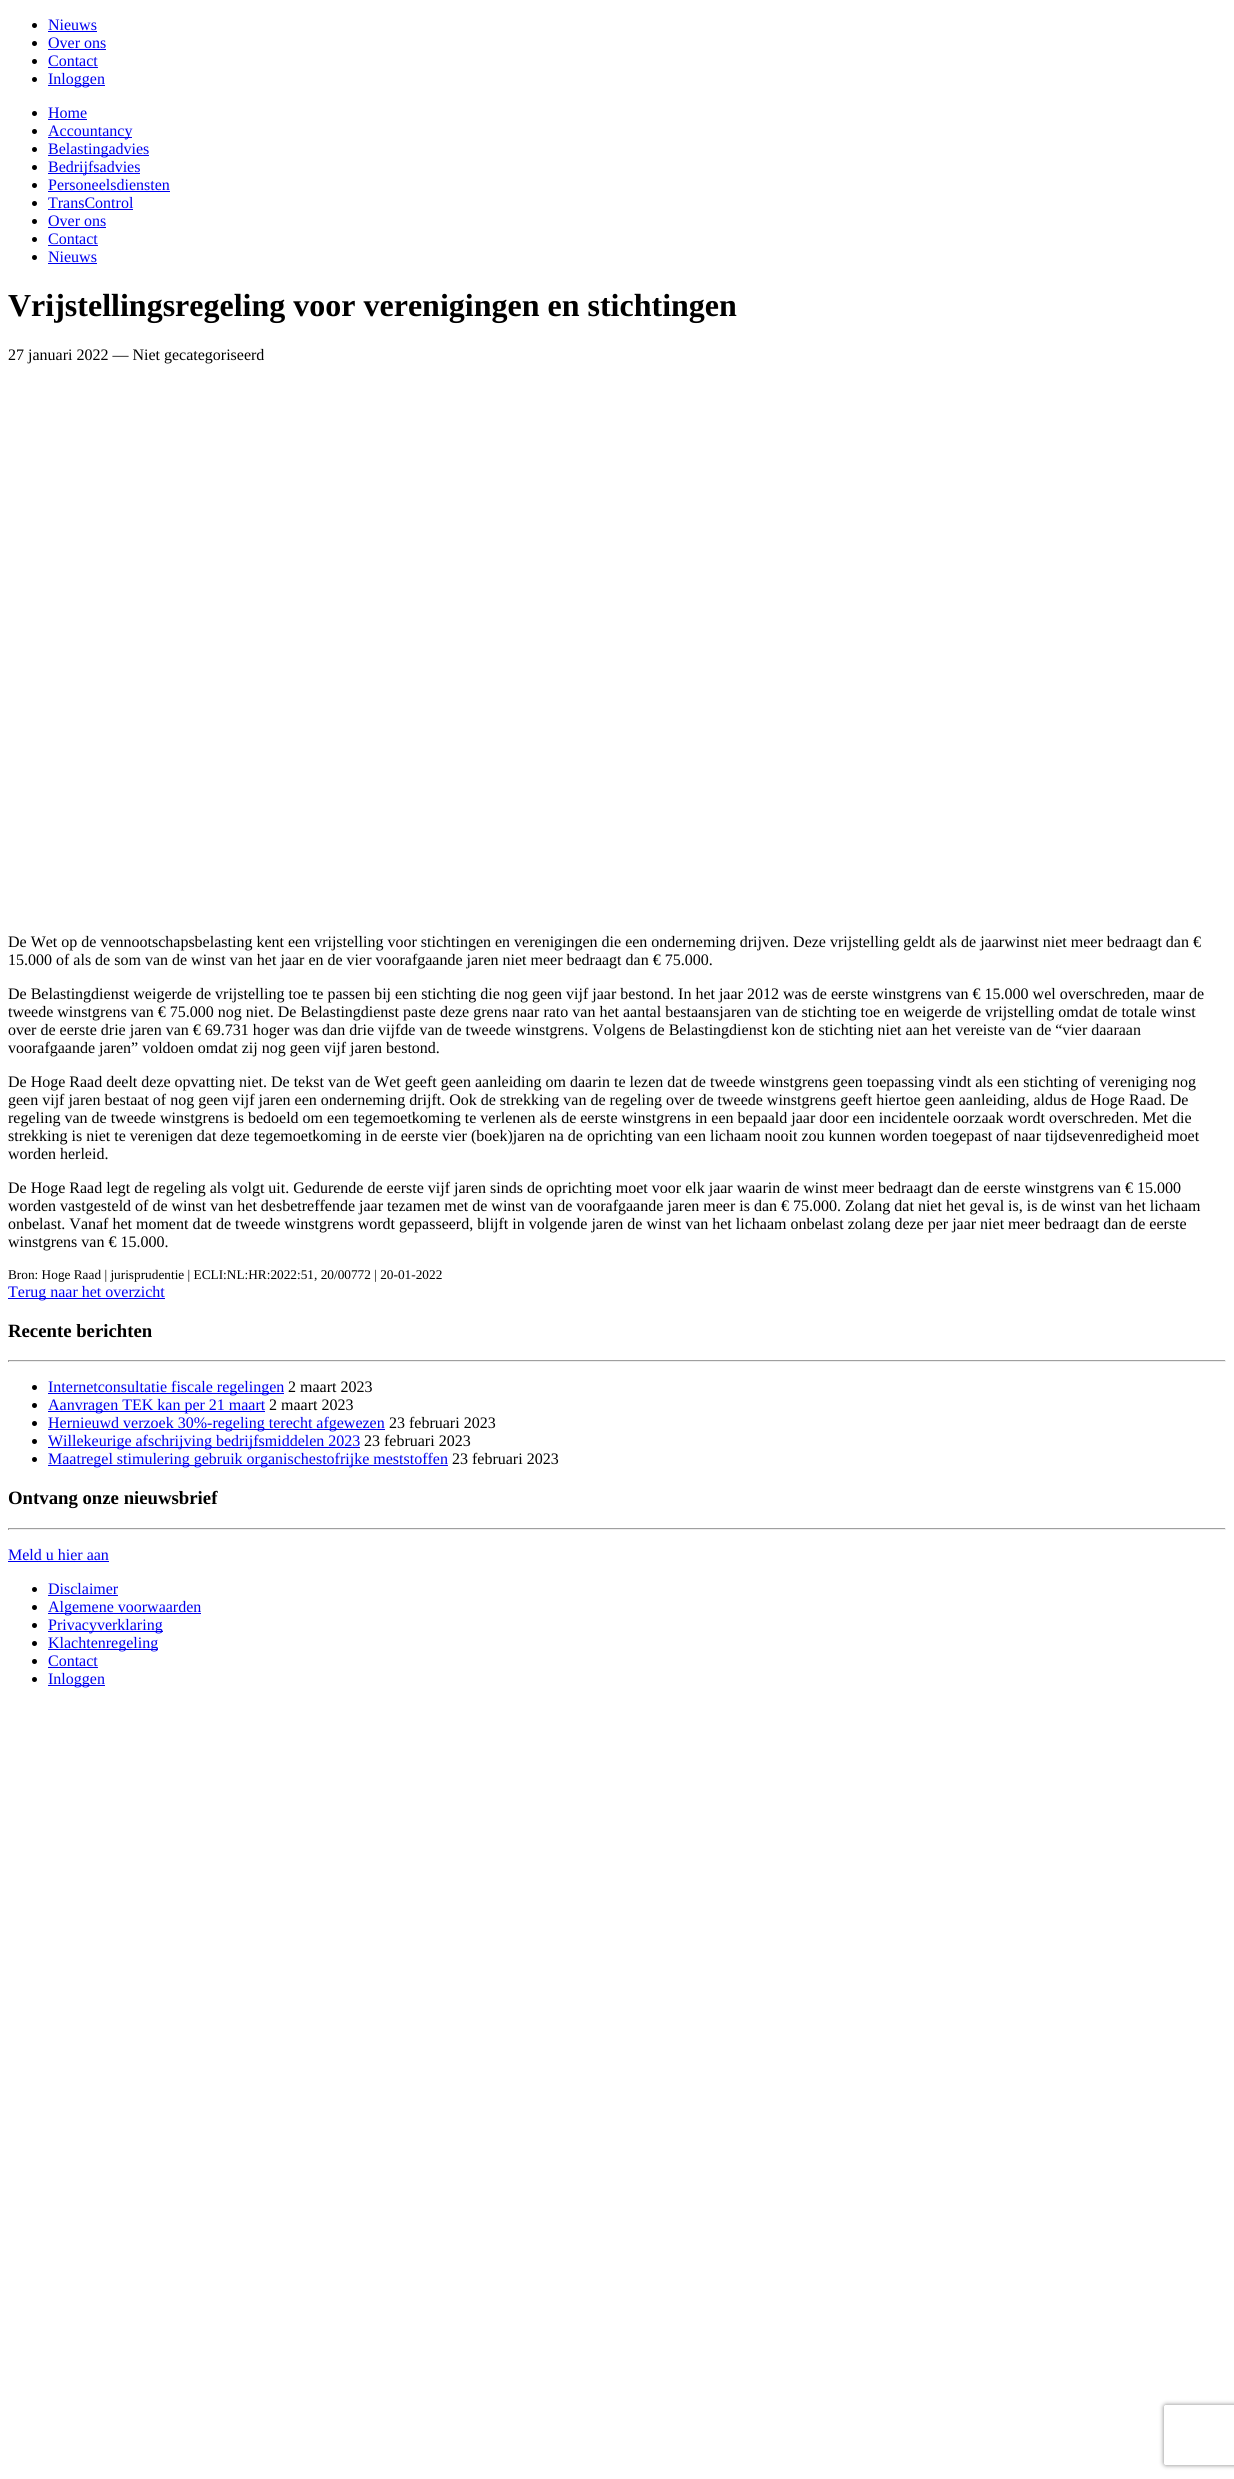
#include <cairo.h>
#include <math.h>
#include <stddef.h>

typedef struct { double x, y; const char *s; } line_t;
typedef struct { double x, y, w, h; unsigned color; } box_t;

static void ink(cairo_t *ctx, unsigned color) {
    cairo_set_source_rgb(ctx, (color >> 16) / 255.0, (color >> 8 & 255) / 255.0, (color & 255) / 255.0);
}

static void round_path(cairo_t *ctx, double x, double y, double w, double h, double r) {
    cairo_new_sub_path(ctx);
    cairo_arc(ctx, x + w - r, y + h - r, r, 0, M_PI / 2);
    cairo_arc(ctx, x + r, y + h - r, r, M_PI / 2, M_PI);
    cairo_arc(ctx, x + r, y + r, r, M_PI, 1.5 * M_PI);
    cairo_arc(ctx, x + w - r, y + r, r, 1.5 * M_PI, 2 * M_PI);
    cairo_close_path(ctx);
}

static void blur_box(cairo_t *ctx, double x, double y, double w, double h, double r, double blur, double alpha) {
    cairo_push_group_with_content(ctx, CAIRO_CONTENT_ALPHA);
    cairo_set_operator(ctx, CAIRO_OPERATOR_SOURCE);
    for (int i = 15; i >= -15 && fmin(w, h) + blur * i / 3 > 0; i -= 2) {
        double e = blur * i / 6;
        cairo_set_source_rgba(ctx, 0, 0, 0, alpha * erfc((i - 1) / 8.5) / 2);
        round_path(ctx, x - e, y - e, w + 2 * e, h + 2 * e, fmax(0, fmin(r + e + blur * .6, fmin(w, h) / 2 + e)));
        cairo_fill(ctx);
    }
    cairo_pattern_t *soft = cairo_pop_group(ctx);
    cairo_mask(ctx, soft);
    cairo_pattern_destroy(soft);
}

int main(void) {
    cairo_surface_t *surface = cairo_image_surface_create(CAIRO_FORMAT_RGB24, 1234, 2479);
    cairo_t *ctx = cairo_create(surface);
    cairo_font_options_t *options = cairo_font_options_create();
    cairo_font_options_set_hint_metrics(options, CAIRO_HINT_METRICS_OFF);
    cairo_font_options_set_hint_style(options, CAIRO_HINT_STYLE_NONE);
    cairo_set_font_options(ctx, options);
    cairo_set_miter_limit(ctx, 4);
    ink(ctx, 0xFFFFFF);
    cairo_paint(ctx);
    ink(ctx, 0x000000);
    cairo_arc(ctx, 34.5, 25.5, 2.5, 0, 2 * M_PI);
    cairo_fill(ctx);
    cairo_select_font_face(ctx, "Liberation Serif", CAIRO_FONT_SLANT_NORMAL, CAIRO_FONT_WEIGHT_NORMAL);
    cairo_set_font_size(ctx, 16);
    ink(ctx, 0x0000EE);
    cairo_move_to(ctx, 48, 30);
    cairo_show_text(ctx, "Nieuws");
    cairo_rectangle(ctx, 48, 31, 49, 1);
    cairo_fill(ctx);
    ink(ctx, 0x000000);
    cairo_arc(ctx, 34.5, 43.5, 2.5, 0, 2 * M_PI);
    cairo_fill(ctx);
    ink(ctx, 0x0000EE);
    cairo_move_to(ctx, 48, 48);
    cairo_show_text(ctx, "Over ons");
    cairo_rectangle(ctx, 48, 49, 58, 1);
    cairo_fill(ctx);
    ink(ctx, 0x000000);
    cairo_arc(ctx, 34.5, 61.5, 2.5, 0, 2 * M_PI);
    cairo_fill(ctx);
    ink(ctx, 0x0000EE);
    cairo_move_to(ctx, 48, 66);
    cairo_show_text(ctx, "Contact");
    cairo_rectangle(ctx, 48, 67, 50, 1);
    cairo_fill(ctx);
    ink(ctx, 0x000000);
    cairo_arc(ctx, 34.5, 79.5, 2.5, 0, 2 * M_PI);
    cairo_fill(ctx);
    ink(ctx, 0x0000EE);
    cairo_rectangle(ctx, 48, 85, 57, 1);
    cairo_fill(ctx);
    cairo_move_to(ctx, 48, 84);
    cairo_show_text(ctx, "Inloggen");
    ink(ctx, 0x000000);
    cairo_new_path(ctx);
    cairo_arc(ctx, 34.5, 113.5, 2.5, 0, 2 * M_PI);
    cairo_fill(ctx);
    ink(ctx, 0x0000EE);
    cairo_move_to(ctx, 48, 118);
    cairo_show_text(ctx, "Home");
    cairo_rectangle(ctx, 48, 119, 39, 1);
    cairo_fill(ctx);
    ink(ctx, 0x000000);
    cairo_arc(ctx, 34.5, 131.5, 2.5, 0, 2 * M_PI);
    cairo_fill(ctx);
    ink(ctx, 0x0000EE);
    cairo_rectangle(ctx, 48, 137, 84, 1);
    cairo_fill(ctx);
    cairo_move_to(ctx, 48, 136);
    cairo_show_text(ctx, "Accountancy");
    ink(ctx, 0x000000);
    cairo_new_path(ctx);
    cairo_arc(ctx, 34.5, 149.5, 2.5, 0, 2 * M_PI);
    cairo_fill(ctx);
    ink(ctx, 0x0000EE);
    cairo_rectangle(ctx, 48, 155, 101, 1);
    cairo_fill(ctx);
    cairo_move_to(ctx, 48, 154);
    cairo_show_text(ctx, "Belastingadvies");
    ink(ctx, 0x000000);
    cairo_new_path(ctx);
    cairo_arc(ctx, 34.5, 167.5, 2.5, 0, 2 * M_PI);
    cairo_fill(ctx);
    ink(ctx, 0x0000EE);
    cairo_rectangle(ctx, 48, 173, 92, 1);
    cairo_fill(ctx);
    cairo_move_to(ctx, 48, 172);
    cairo_show_text(ctx, "Bedrijfsadvies");
    ink(ctx, 0x000000);
    cairo_new_path(ctx);
    cairo_arc(ctx, 34.5, 185.5, 2.5, 0, 2 * M_PI);
    cairo_fill(ctx);
    ink(ctx, 0x0000EE);
    cairo_move_to(ctx, 48, 190);
    cairo_show_text(ctx, "Personeelsdiensten");
    cairo_rectangle(ctx, 48, 191, 122, 1);
    cairo_fill(ctx);
    ink(ctx, 0x000000);
    cairo_arc(ctx, 34.5, 203.5, 2.5, 0, 2 * M_PI);
    cairo_fill(ctx);
    ink(ctx, 0x0000EE);
    cairo_move_to(ctx, 48, 208);
    cairo_show_text(ctx, "TransControl");
    cairo_rectangle(ctx, 48, 209, 85, 1);
    cairo_fill(ctx);
    ink(ctx, 0x000000);
    cairo_arc(ctx, 34.5, 221.5, 2.5, 0, 2 * M_PI);
    cairo_fill(ctx);
    ink(ctx, 0x0000EE);
    cairo_move_to(ctx, 48, 226);
    cairo_show_text(ctx, "Over ons");
    cairo_rectangle(ctx, 48, 227, 58, 1);
    cairo_fill(ctx);
    ink(ctx, 0x000000);
    cairo_arc(ctx, 34.5, 239.5, 2.5, 0, 2 * M_PI);
    cairo_fill(ctx);
    ink(ctx, 0x0000EE);
    cairo_move_to(ctx, 48, 244);
    cairo_show_text(ctx, "Contact");
    cairo_rectangle(ctx, 48, 245, 50, 1);
    cairo_fill(ctx);
    ink(ctx, 0x000000);
    cairo_arc(ctx, 34.5, 257.5, 2.5, 0, 2 * M_PI);
    cairo_fill(ctx);
    ink(ctx, 0x0000EE);
    cairo_move_to(ctx, 48, 262);
    cairo_show_text(ctx, "Nieuws");
    cairo_rectangle(ctx, 48, 263, 49, 1);
    cairo_fill(ctx);
    cairo_select_font_face(ctx, "Liberation Serif", CAIRO_FONT_SLANT_NORMAL, CAIRO_FONT_WEIGHT_BOLD);
    cairo_set_font_size(ctx, 32);
    ink(ctx, 0x000000);
    cairo_move_to(ctx, 8, 316);
    cairo_show_text(ctx, "Vrijstellingsregeling voor verenigingen en stichtingen");
    cairo_select_font_face(ctx, "Liberation Serif", CAIRO_FONT_SLANT_NORMAL, CAIRO_FONT_WEIGHT_NORMAL);
    cairo_set_font_size(ctx, 16);
    {
        static const line_t items[] = {
            {8, 360, "27 januari 2022 — Niet gecategoriseerd"},
            {8, 947, "De Wet op de vennootschapsbelasting kent een vrijstelling voor stichtingen en verenigingen die een onderneming drijven. Deze vrijstelling geldt als de jaarwinst niet meer bedraagt dan €"},
            {8, 965, "15.000 of als de som van de winst van het jaar en de vier voorafgaande jaren niet meer bedraagt dan € 75.000."},
            {8, 999, "De Belastingdienst weigerde de vrijstelling toe te passen bij een stichting die nog geen vijf jaar bestond. In het jaar 2012 was de eerste winstgrens van € 15.000 wel overschreden, maar de"},
            {8, 1017, "tweede winstgrens van € 75.000 nog niet. De Belastingdienst paste deze grens naar rato van het aantal bestaansjaren van de stichting toe en weigerde de vrijstelling omdat de totale winst"},
            {8, 1035, "over de eerste drie jaren van € 69.731 hoger was dan drie vijfde van de tweede winstgrens. Volgens de Belastingdienst kon de stichting niet aan het vereiste van de “vier daaraan"},
            {8, 1053, "voorafgaande jaren” voldoen omdat zij nog geen vijf jaren bestond."},
            {8, 1087, "De Hoge Raad deelt deze opvatting niet. De tekst van de Wet geeft geen aanleiding om daarin te lezen dat de tweede winstgrens geen toepassing vindt als een stichting of vereniging nog"},
            {8, 1105, "geen vijf jaren bestaat of nog geen vijf jaren een onderneming drijft. Ook de strekking van de regeling over de tweede winstgrens geeft hiertoe geen aanleiding, aldus de Hoge Raad. De"},
            {8, 1123, "regeling van de tweede winstgrens is bedoeld om een tegemoetkoming te verlenen als de eerste winstgrens in een bepaald jaar door een incidentele oorzaak wordt overschreden. Met die"},
            {8, 1141, "strekking is niet te verenigen dat deze tegemoetkoming in de eerste vier (boek)jaren na de oprichting van een lichaam nooit zou kunnen worden toegepast of naar tijdsevenredigheid moet"},
            {8, 1159, "worden herleid."},
            {8, 1193, "De Hoge Raad legt de regeling als volgt uit. Gedurende de eerste vijf jaren sinds de oprichting moet voor elk jaar waarin de winst meer bedraagt dan de eerste winstgrens van € 15.000"},
            {8, 1211, "worden vastgesteld of de winst van het desbetreffende jaar tezamen met de winst van de voorafgaande jaren meer is dan € 75.000. Zolang dat niet het geval is, is de winst van het lichaam"},
            {8, 1229, "onbelast. Vanaf het moment dat de tweede winstgrens wordt gepasseerd, blijft in volgende jaren de winst van het lichaam onbelast zolang deze per jaar niet meer bedraagt dan de eerste"},
            {8, 1247, "winstgrens van € 15.000."},
        };
        for (size_t i = 0; i < sizeof items / sizeof *items; i++) {
            cairo_move_to(ctx, items[i].x, items[i].y);
            cairo_show_text(ctx, items[i].s);
        }
    }
    cairo_set_font_size(ctx, 13.3);
    cairo_move_to(ctx, 8, 1279);
    cairo_show_text(ctx, "Bron: Hoge Raad | jurisprudentie | ECLI:NL:HR:2022:51, 20/00772 | 20-01-2022");
    ink(ctx, 0x0000EE);
    cairo_rectangle(ctx, 8, 1298, 157, 1);
    cairo_fill(ctx);
    cairo_set_font_size(ctx, 16);
    cairo_move_to(ctx, 8, 1297);
    cairo_show_text(ctx, "Terug naar het overzicht");
    cairo_select_font_face(ctx, "Liberation Serif", CAIRO_FONT_SLANT_NORMAL, CAIRO_FONT_WEIGHT_BOLD);
    cairo_set_font_size(ctx, 18.75);
    ink(ctx, 0x000000);
    cairo_move_to(ctx, 8, 1337);
    cairo_show_text(ctx, "Recente berichten");
    {
        static const box_t items[] = {
            {8, 1360, 1218, 1, 0x9F9F9F},
            {1225, 1360, 1, 2, 0xEEEEEE},
            {8, 1361, 1218, 1, 0xEEEEEE},
            {8, 1360, 1, 2, 0x9F9F9F},
        };
        for (size_t i = 0; i < sizeof items / sizeof *items; i++) {
            ink(ctx, items[i].color);
            cairo_rectangle(ctx, items[i].x, items[i].y, items[i].w, items[i].h);
            cairo_fill(ctx);
        }
    }
    ink(ctx, 0x000000);
    cairo_new_path(ctx);
    cairo_arc(ctx, 34.5, 1387.5, 2.5, 0, 2 * M_PI);
    cairo_fill(ctx);
    ink(ctx, 0x0000EE);
    cairo_rectangle(ctx, 48, 1393, 236, 1);
    cairo_fill(ctx);
    cairo_select_font_face(ctx, "Liberation Serif", CAIRO_FONT_SLANT_NORMAL, CAIRO_FONT_WEIGHT_NORMAL);
    cairo_set_font_size(ctx, 16);
    cairo_move_to(ctx, 48, 1392);
    cairo_show_text(ctx, "Internetconsultatie fiscale regelingen");
    ink(ctx, 0x000000);
    cairo_move_to(ctx, 288, 1392);
    cairo_show_text(ctx, "2 maart 2023");
    cairo_new_path(ctx);
    cairo_arc(ctx, 34.5, 1405.5, 2.5, 0, 2 * M_PI);
    cairo_fill(ctx);
    ink(ctx, 0x0000EE);
    cairo_rectangle(ctx, 48, 1411, 217, 1);
    cairo_fill(ctx);
    cairo_move_to(ctx, 48, 1410);
    cairo_show_text(ctx, "Aanvragen TEK kan per 21 maart");
    ink(ctx, 0x000000);
    cairo_move_to(ctx, 269, 1410);
    cairo_show_text(ctx, "2 maart 2023");
    cairo_new_path(ctx);
    cairo_arc(ctx, 34.5, 1423.5, 2.5, 0, 2 * M_PI);
    cairo_fill(ctx);
    ink(ctx, 0x0000EE);
    cairo_rectangle(ctx, 48, 1429, 337, 1);
    cairo_fill(ctx);
    cairo_move_to(ctx, 48, 1428);
    cairo_show_text(ctx, "Hernieuwd verzoek 30%-regeling terecht afgewezen");
    ink(ctx, 0x000000);
    cairo_move_to(ctx, 389, 1428);
    cairo_show_text(ctx, "23 februari 2023");
    cairo_new_path(ctx);
    cairo_arc(ctx, 34.5, 1441.5, 2.5, 0, 2 * M_PI);
    cairo_fill(ctx);
    ink(ctx, 0x0000EE);
    cairo_rectangle(ctx, 48, 1447, 312, 1);
    cairo_fill(ctx);
    cairo_move_to(ctx, 48, 1446);
    cairo_show_text(ctx, "Willekeurige afschrijving bedrijfsmiddelen 2023");
    ink(ctx, 0x000000);
    cairo_move_to(ctx, 364, 1446);
    cairo_show_text(ctx, "23 februari 2023");
    cairo_new_path(ctx);
    cairo_arc(ctx, 34.5, 1459.5, 2.5, 0, 2 * M_PI);
    cairo_fill(ctx);
    ink(ctx, 0x0000EE);
    cairo_rectangle(ctx, 48, 1465, 400, 1);
    cairo_fill(ctx);
    cairo_move_to(ctx, 48, 1464);
    cairo_show_text(ctx, "Maatregel stimulering gebruik organischestofrijke meststoffen");
    ink(ctx, 0x000000);
    cairo_move_to(ctx, 452, 1464);
    cairo_show_text(ctx, "23 februari 2023");
    cairo_select_font_face(ctx, "Liberation Serif", CAIRO_FONT_SLANT_NORMAL, CAIRO_FONT_WEIGHT_BOLD);
    cairo_set_font_size(ctx, 18.75);
    cairo_move_to(ctx, 8, 1504);
    cairo_show_text(ctx, "Ontvang onze nieuwsbrief");
    {
        static const box_t items[] = {
            {8, 1528, 1218, 1, 0x9F9F9F},
            {1225, 1528, 1, 2, 0xEEEEEE},
            {8, 1529, 1218, 1, 0xEEEEEE},
            {8, 1528, 1, 2, 0x9F9F9F},
        };
        for (size_t i = 0; i < sizeof items / sizeof *items; i++) {
            ink(ctx, items[i].color);
            cairo_rectangle(ctx, items[i].x, items[i].y, items[i].w, items[i].h);
            cairo_fill(ctx);
        }
    }
    cairo_select_font_face(ctx, "Liberation Serif", CAIRO_FONT_SLANT_NORMAL, CAIRO_FONT_WEIGHT_NORMAL);
    cairo_set_font_size(ctx, 16);
    ink(ctx, 0x0000EE);
    cairo_move_to(ctx, 8, 1560);
    cairo_show_text(ctx, "Meld u hier aan");
    cairo_rectangle(ctx, 8, 1561, 101, 1);
    cairo_fill(ctx);
    ink(ctx, 0x000000);
    cairo_arc(ctx, 34.5, 1589.5, 2.5, 0, 2 * M_PI);
    cairo_fill(ctx);
    ink(ctx, 0x0000EE);
    cairo_move_to(ctx, 48, 1594);
    cairo_show_text(ctx, "Disclaimer");
    cairo_rectangle(ctx, 48, 1595, 70, 1);
    cairo_fill(ctx);
    ink(ctx, 0x000000);
    cairo_arc(ctx, 34.5, 1607.5, 2.5, 0, 2 * M_PI);
    cairo_fill(ctx);
    ink(ctx, 0x0000EE);
    cairo_rectangle(ctx, 48, 1613, 153, 1);
    cairo_fill(ctx);
    cairo_move_to(ctx, 48, 1612);
    cairo_show_text(ctx, "Algemene voorwaarden");
    ink(ctx, 0x000000);
    cairo_new_path(ctx);
    cairo_arc(ctx, 34.5, 1625.5, 2.5, 0, 2 * M_PI);
    cairo_fill(ctx);
    ink(ctx, 0x0000EE);
    cairo_rectangle(ctx, 48, 1631, 115, 1);
    cairo_fill(ctx);
    cairo_move_to(ctx, 48, 1630);
    cairo_show_text(ctx, "Privacyverklaring");
    ink(ctx, 0x000000);
    cairo_new_path(ctx);
    cairo_arc(ctx, 34.5, 1643.5, 2.5, 0, 2 * M_PI);
    cairo_fill(ctx);
    ink(ctx, 0x0000EE);
    cairo_rectangle(ctx, 48, 1649, 110, 1);
    cairo_fill(ctx);
    cairo_move_to(ctx, 48, 1648);
    cairo_show_text(ctx, "Klachtenregeling");
    ink(ctx, 0x000000);
    cairo_new_path(ctx);
    cairo_arc(ctx, 34.5, 1661.5, 2.5, 0, 2 * M_PI);
    cairo_fill(ctx);
    ink(ctx, 0x0000EE);
    cairo_move_to(ctx, 48, 1666);
    cairo_show_text(ctx, "Contact");
    cairo_rectangle(ctx, 48, 1667, 50, 1);
    cairo_fill(ctx);
    ink(ctx, 0x000000);
    cairo_arc(ctx, 34.5, 1679.5, 2.5, 0, 2 * M_PI);
    cairo_fill(ctx);
    ink(ctx, 0x0000EE);
    cairo_rectangle(ctx, 48, 1685, 57, 1);
    cairo_fill(ctx);
    cairo_move_to(ctx, 48, 1684);
    cairo_show_text(ctx, "Inloggen");
    cairo_save(ctx);
    cairo_set_fill_rule(ctx, CAIRO_FILL_RULE_EVEN_ODD);
    cairo_new_path(ctx);
    cairo_move_to(ctx, 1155, 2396);
    cairo_line_to(ctx, 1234, 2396);
    cairo_line_to(ctx, 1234, 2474);
    cairo_line_to(ctx, 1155, 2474);
    cairo_close_path(ctx);
    cairo_move_to(ctx, 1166, 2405);
    cairo_line_to(ctx, 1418, 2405);
    cairo_curve_to(ctx, 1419, 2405, 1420, 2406, 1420, 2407);
    cairo_line_to(ctx, 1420, 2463);
    cairo_curve_to(ctx, 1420, 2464, 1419, 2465, 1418, 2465);
    cairo_line_to(ctx, 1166, 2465);
    cairo_curve_to(ctx, 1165, 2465, 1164, 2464, 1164, 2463);
    cairo_line_to(ctx, 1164, 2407);
    cairo_curve_to(ctx, 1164, 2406, 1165, 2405, 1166, 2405);
    cairo_close_path(ctx);
    cairo_clip(ctx);
    ink(ctx, 0x808080);
    blur_box(ctx, 1164, 2405, 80, 60, 2, 2.5, 1);
    cairo_restore(ctx);
    cairo_surface_write_to_png(surface, "image.png");
    cairo_font_options_destroy(options);
    cairo_destroy(ctx);
    cairo_surface_destroy(surface);
    return 0;
}
